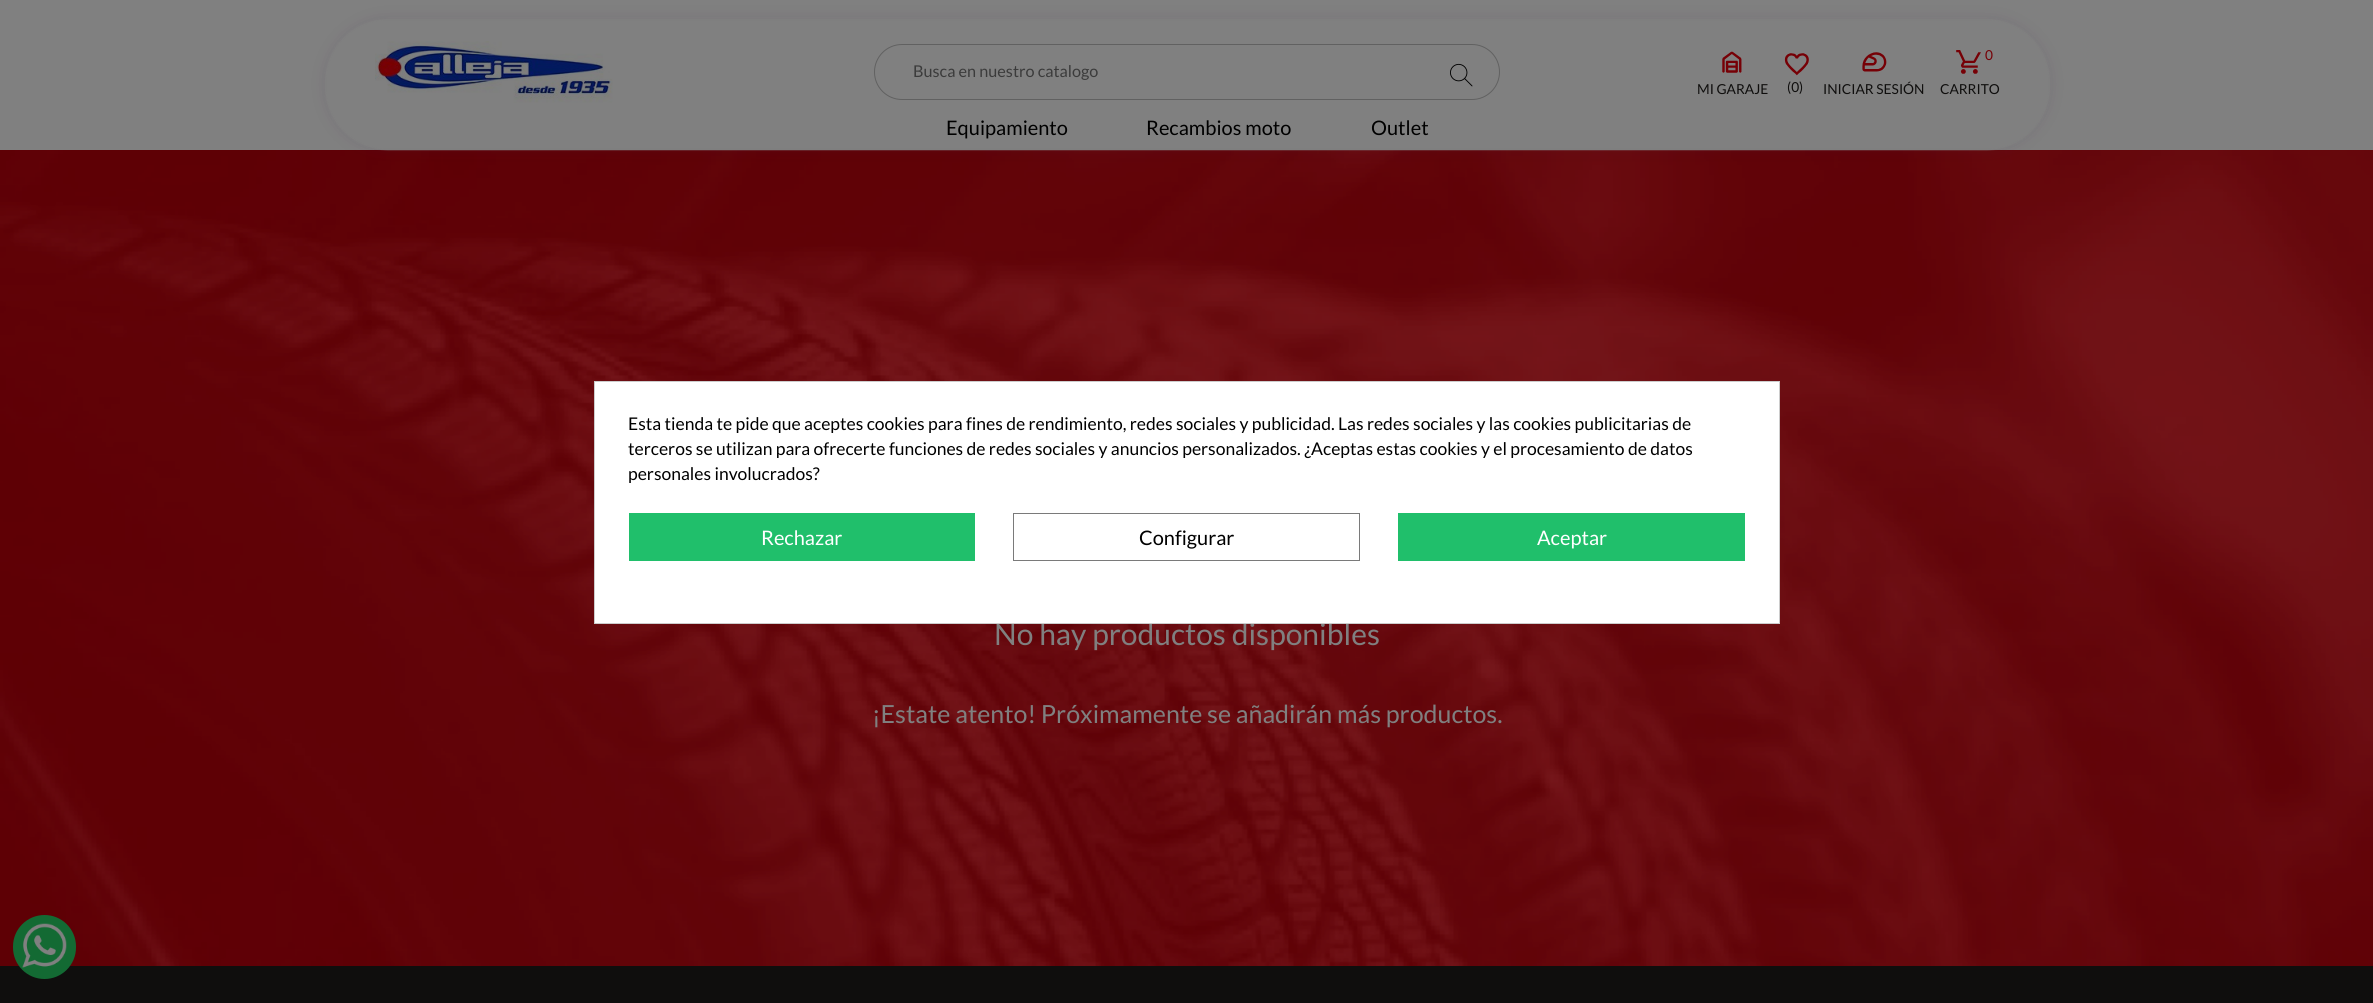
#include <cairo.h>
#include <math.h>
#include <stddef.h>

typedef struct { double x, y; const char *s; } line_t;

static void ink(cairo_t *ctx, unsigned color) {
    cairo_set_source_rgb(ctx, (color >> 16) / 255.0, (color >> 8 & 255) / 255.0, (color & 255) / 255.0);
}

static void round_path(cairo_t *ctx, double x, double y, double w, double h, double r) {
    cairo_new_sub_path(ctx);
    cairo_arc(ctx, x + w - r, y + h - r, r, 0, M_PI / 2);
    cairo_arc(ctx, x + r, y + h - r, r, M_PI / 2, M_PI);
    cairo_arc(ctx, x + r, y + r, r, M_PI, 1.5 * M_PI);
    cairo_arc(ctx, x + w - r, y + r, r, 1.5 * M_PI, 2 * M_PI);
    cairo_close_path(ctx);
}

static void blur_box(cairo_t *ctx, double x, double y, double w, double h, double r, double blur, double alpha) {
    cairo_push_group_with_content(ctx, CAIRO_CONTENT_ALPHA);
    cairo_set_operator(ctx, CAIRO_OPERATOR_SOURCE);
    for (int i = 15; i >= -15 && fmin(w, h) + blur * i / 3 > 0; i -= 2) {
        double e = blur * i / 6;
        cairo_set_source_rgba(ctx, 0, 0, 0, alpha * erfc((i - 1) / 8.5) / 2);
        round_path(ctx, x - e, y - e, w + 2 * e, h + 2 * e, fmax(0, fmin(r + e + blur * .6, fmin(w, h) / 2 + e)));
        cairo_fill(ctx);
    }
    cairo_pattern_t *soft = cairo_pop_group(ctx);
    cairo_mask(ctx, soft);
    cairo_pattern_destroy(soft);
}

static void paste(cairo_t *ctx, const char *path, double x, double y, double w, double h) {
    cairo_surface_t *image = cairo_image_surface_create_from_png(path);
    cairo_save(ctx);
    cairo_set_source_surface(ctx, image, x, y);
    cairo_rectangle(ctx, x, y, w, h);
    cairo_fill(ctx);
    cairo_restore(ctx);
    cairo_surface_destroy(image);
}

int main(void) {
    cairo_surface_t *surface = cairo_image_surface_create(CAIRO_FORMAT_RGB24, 2373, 1003);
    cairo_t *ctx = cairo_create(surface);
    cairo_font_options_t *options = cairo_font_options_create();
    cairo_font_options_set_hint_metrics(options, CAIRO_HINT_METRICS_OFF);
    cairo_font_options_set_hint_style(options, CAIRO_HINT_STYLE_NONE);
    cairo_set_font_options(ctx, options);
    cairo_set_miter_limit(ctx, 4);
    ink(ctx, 0x808080);
    cairo_paint(ctx);
    paste(ctx, "media/7.png", 0, 150, 2373, 816);
    ink(ctx, 0x37103C);
    blur_box(ctx, 325, 19, 1725, 131, 63, 7.5, 0.12);
    ink(ctx, 0x808080);
    blur_box(ctx, 325, 19, 1725, 131, 63, 0.5, 1);
    paste(ctx, "media/1.png", 375, 41, 238, 62);
    round_path(ctx, 874.5, 44.5, 625, 55, 27.5);
    ink(ctx, 0x616161);
    cairo_set_line_width(ctx, 1);
    cairo_stroke(ctx);
    cairo_select_font_face(ctx, "Lato", CAIRO_FONT_SLANT_NORMAL, CAIRO_FONT_WEIGHT_NORMAL);
    cairo_set_font_size(ctx, 16.25);
    ink(ctx, 0x3B3B3B);
    cairo_move_to(ctx, 913, 77);
    cairo_show_text(ctx, "Busca en nuestro catalogo");
    paste(ctx, "media/2.png", 1450, 63, 23, 24);
    paste(ctx, "media/3.png", 1722, 51, 20, 22);
    cairo_set_font_size(ctx, 13.75);
    ink(ctx, 0x0F0E0D);
    cairo_move_to(ctx, 1697, 94);
    cairo_show_text(ctx, "MI GARAJE");
    paste(ctx, "media/4.png", 1784, 53, 25, 23);
    cairo_move_to(ctx, 1787, 92);
    cairo_show_text(ctx, "(0)");
    paste(ctx, "media/5.png", 1862, 52, 25, 20);
    cairo_move_to(ctx, 1823, 94);
    cairo_show_text(ctx, "INICIAR SESIÓN");
    paste(ctx, "media/6.png", 1956, 50, 25, 24);
    ink(ctx, 0x760006);
    cairo_move_to(ctx, 1985, 60);
    cairo_show_text(ctx, "0");
    ink(ctx, 0x0F0E0D);
    cairo_move_to(ctx, 1940, 94);
    cairo_show_text(ctx, "CARRITO");
    cairo_set_font_size(ctx, 20);
    ink(ctx, 0x000000);
    {
        static const line_t items[] = {
            {946, 135, "Equipamiento"},
            {1146, 135, "Recambios moto"},
            {1371, 135, "Outlet"},
        };
        for (size_t i = 0; i < sizeof items / sizeof *items; i++) {
            cairo_move_to(ctx, items[i].x, items[i].y);
            cairo_show_text(ctx, items[i].s);
        }
    }
    cairo_set_font_size(ctx, 30);
    ink(ctx, 0x808080);
    cairo_move_to(ctx, 994, 645);
    cairo_show_text(ctx, "No hay productos disponibles");
    cairo_set_font_size(ctx, 25);
    cairo_move_to(ctx, 872, 723);
    cairo_show_text(ctx, "¡Estate atento! Próximamente se añadirán más productos.");
    ink(ctx, 0x0F0E0D);
    cairo_rectangle(ctx, 0, 966, 2373, 37);
    cairo_fill(ctx);
    ink(ctx, 0xFFFFFF);
    cairo_rectangle(ctx, 594.5, 381.5, 1185, 242);
    cairo_fill_preserve(ctx);
    ink(ctx, 0xCCCCCC);
    cairo_stroke(ctx);
    cairo_set_font_size(ctx, 17.5);
    ink(ctx, 0x000000);
    {
        static const line_t items[] = {
            {628, 430, "Esta tienda te pide que aceptes cookies para fines de rendimiento, redes sociales y publicidad. Las redes sociales y las cookies publicitarias de"},
            {628, 455, "terceros se utilizan para ofrecerte funciones de redes sociales y anuncios personalizados. ¿Aceptas estas cookies y el procesamiento de datos"},
            {628, 480, "personales involucrados?"},
        };
        for (size_t i = 0; i < sizeof items / sizeof *items; i++) {
            cairo_move_to(ctx, items[i].x, items[i].y);
            cairo_show_text(ctx, items[i].s);
        }
    }
    ink(ctx, 0x20BF6B);
    cairo_rectangle(ctx, 629, 513, 346, 48);
    cairo_fill(ctx);
    cairo_set_font_size(ctx, 20);
    ink(ctx, 0xFFFFFF);
    cairo_move_to(ctx, 761, 545);
    cairo_show_text(ctx, "Rechazar");
    cairo_rectangle(ctx, 1013.5, 513.5, 346, 47);
    ink(ctx, 0x7A7A7A);
    cairo_stroke(ctx);
    ink(ctx, 0x000000);
    cairo_move_to(ctx, 1139, 545);
    cairo_show_text(ctx, "Configurar");
    ink(ctx, 0x20BF6B);
    cairo_rectangle(ctx, 1398, 513, 347, 48);
    cairo_fill(ctx);
    ink(ctx, 0xFFFFFF);
    cairo_move_to(ctx, 1537, 545);
    cairo_show_text(ctx, "Aceptar");
    ink(ctx, 0x136A33);
    round_path(ctx, 13, 915, 63, 64, 31.5);
    cairo_fill(ctx);
    paste(ctx, "media/8.png", 22, 923, 45, 45);
    cairo_surface_write_to_png(surface, "image.png");
    cairo_font_options_destroy(options);
    cairo_destroy(ctx);
    cairo_surface_destroy(surface);
    return 0;
}
